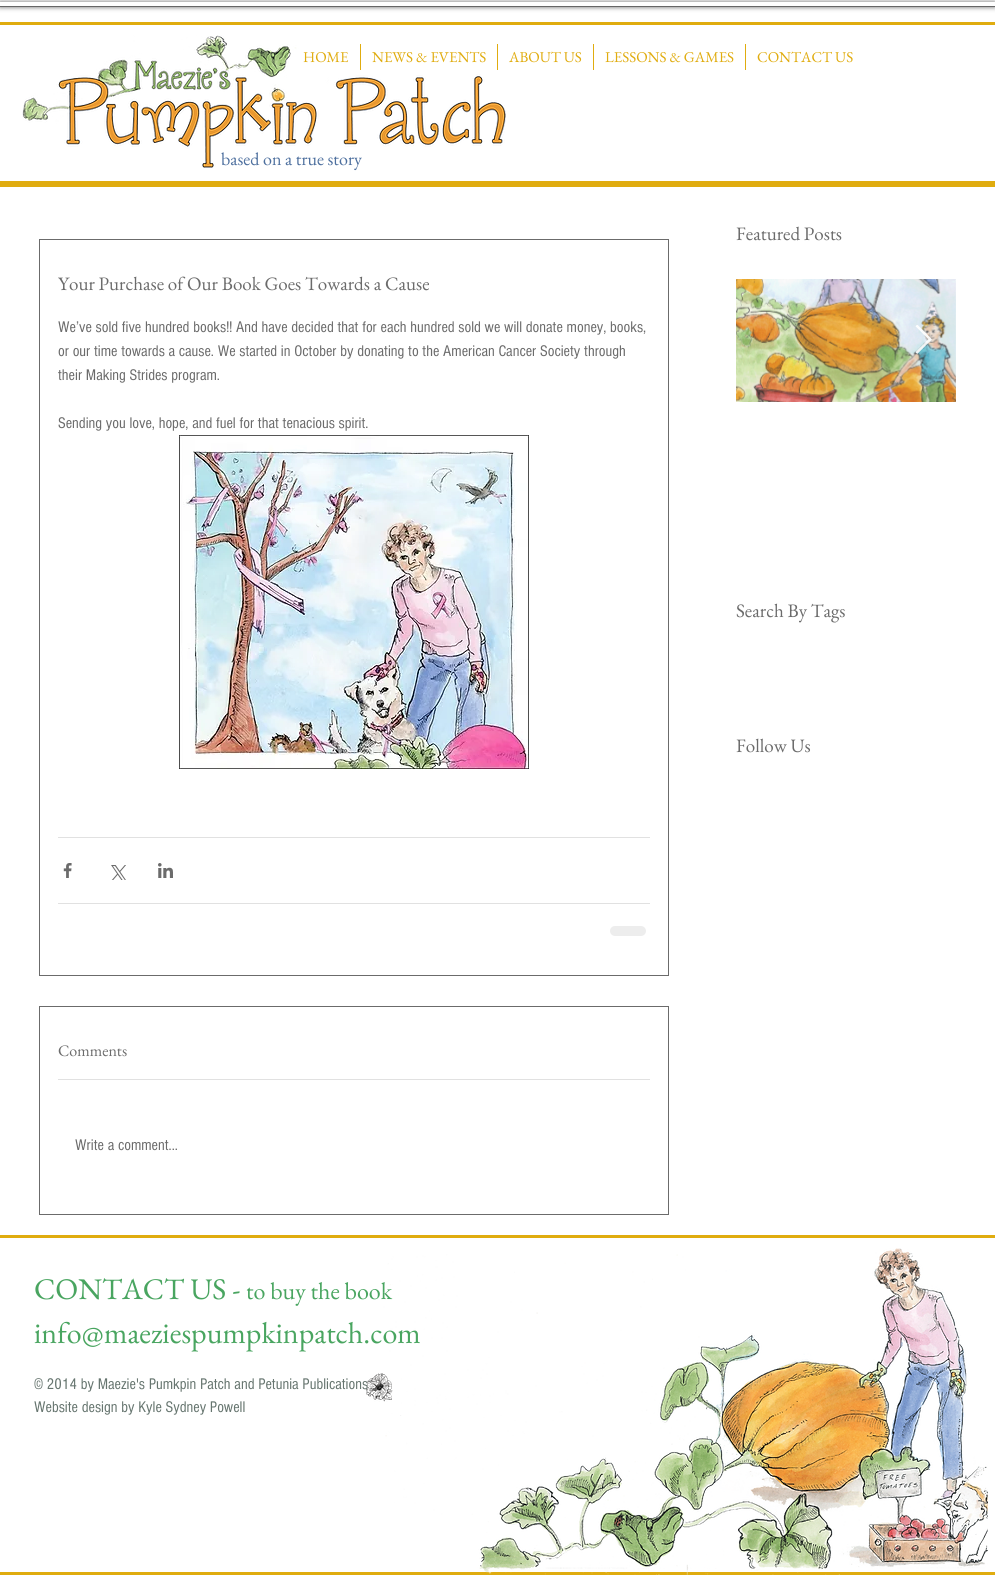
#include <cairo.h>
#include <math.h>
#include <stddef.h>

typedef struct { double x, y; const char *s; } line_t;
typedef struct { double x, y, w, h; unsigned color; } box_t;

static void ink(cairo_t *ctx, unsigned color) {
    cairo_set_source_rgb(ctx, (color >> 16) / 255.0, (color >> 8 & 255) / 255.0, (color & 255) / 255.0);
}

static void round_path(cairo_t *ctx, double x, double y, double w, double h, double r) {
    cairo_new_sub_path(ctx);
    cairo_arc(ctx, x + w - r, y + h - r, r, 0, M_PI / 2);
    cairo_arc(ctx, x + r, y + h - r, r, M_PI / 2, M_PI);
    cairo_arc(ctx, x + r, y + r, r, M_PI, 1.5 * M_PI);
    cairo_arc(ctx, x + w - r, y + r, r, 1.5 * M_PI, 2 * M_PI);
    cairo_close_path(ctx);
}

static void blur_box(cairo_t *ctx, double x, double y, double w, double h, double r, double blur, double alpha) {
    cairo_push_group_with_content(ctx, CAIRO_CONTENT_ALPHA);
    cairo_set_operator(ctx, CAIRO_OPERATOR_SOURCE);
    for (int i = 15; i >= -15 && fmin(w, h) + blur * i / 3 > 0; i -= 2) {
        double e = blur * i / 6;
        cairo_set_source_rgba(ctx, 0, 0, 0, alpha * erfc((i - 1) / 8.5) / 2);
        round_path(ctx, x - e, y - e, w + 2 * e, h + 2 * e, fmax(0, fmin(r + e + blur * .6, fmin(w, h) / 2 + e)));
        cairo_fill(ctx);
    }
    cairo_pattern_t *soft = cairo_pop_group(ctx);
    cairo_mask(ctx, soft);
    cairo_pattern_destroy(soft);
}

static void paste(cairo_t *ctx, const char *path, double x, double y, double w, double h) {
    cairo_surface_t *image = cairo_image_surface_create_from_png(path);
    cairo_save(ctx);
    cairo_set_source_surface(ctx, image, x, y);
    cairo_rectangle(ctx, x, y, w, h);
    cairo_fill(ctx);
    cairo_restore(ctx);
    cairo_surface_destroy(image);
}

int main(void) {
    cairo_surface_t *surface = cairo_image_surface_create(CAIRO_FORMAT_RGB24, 995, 1575);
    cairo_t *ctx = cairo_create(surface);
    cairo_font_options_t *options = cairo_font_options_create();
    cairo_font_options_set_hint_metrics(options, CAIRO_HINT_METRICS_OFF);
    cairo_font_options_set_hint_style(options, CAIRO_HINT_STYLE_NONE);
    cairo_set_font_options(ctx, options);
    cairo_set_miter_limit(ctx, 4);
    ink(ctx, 0xFFFFFF);
    cairo_paint(ctx);
    cairo_save(ctx);
    cairo_set_fill_rule(ctx, CAIRO_FILL_RULE_EVEN_ODD);
    cairo_new_path(ctx);
    cairo_move_to(ctx, 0, 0);
    cairo_line_to(ctx, 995, 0);
    cairo_line_to(ctx, 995, 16);
    cairo_line_to(ctx, 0, 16);
    cairo_close_path(ctx);
    cairo_move_to(ctx, 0, 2);
    cairo_line_to(ctx, 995, 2);
    cairo_line_to(ctx, 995, 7);
    cairo_line_to(ctx, 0, 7);
    cairo_close_path(ctx);
    cairo_clip(ctx);
    ink(ctx, 0x000000);
    blur_box(ctx, 0, 2, 995, 5, 0, 2.5, 0.6);
    cairo_restore(ctx);
    {
        static const box_t items[] = {
            {0, 6, 995, 1, 0x666666},
            {0, 22, 995, 3, 0xE0AC0F},
            {0, 181, 995, 6, 0xE0AC0F},
        };
        for (size_t i = 0; i < sizeof items / sizeof *items; i++) {
            ink(ctx, items[i].color);
            cairo_rectangle(ctx, items[i].x, items[i].y, items[i].w, items[i].h);
            cairo_fill(ctx);
        }
    }
    paste(ctx, "media/1.png", 22, 35, 484, 133);
    cairo_select_font_face(ctx, "EB Garamond", CAIRO_FONT_SLANT_NORMAL, CAIRO_FONT_WEIGHT_NORMAL);
    cairo_set_font_size(ctx, 15);
    cairo_move_to(ctx, 303, 62);
    cairo_show_text(ctx, "HOME");
    cairo_rectangle(ctx, 360, 44, 1, 26);
    cairo_fill(ctx);
    cairo_move_to(ctx, 372, 62);
    cairo_show_text(ctx, "NEWS & EVENTS");
    cairo_rectangle(ctx, 497, 44, 1, 26);
    cairo_fill(ctx);
    cairo_move_to(ctx, 509, 62);
    cairo_show_text(ctx, "ABOUT US");
    cairo_rectangle(ctx, 593, 44, 1, 26);
    cairo_fill(ctx);
    cairo_move_to(ctx, 605, 62);
    cairo_show_text(ctx, "LESSONS & GAMES");
    cairo_rectangle(ctx, 745, 44, 1, 26);
    cairo_fill(ctx);
    cairo_move_to(ctx, 757, 62);
    cairo_show_text(ctx, "CONTACT US");
    cairo_set_font_size(ctx, 18);
    ink(ctx, 0x4D6F9E);
    cairo_move_to(ctx, 221, 165);
    cairo_show_text(ctx, "based on a true story");
    cairo_rectangle(ctx, 39.5, 239.5, 629, 736);
    ink(ctx, 0x6B6B6B);
    cairo_set_line_width(ctx, 1);
    cairo_stroke(ctx);
    cairo_set_font_size(ctx, 19);
    cairo_move_to(ctx, 58, 290);
    cairo_show_text(ctx, "Your Purchase of Our Book Goes Towards a Cause");
    cairo_select_font_face(ctx, "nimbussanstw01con", CAIRO_FONT_SLANT_NORMAL, CAIRO_FONT_WEIGHT_NORMAL);
    cairo_set_font_size(ctx, 16);
    {
        static const line_t items[] = {
            {58, 332, "We’ve sold five hundred books!! And have decided that for each hundred sold we will donate money, books,"},
            {58, 356, "or our time towards a cause. We started in October by donating to the American Cancer Society through"},
            {58, 380, "their Making Strides program."},
            {58, 428, "Sending you love, hope, and fuel for that tenacious spirit."},
        };
        for (size_t i = 0; i < sizeof items / sizeof *items; i++) {
            cairo_move_to(ctx, items[i].x, items[i].y);
            cairo_show_text(ctx, items[i].s);
        }
    }
    paste(ctx, "media/2.png", 179, 435, 350, 334);
    ink(ctx, 0xE1E1E1);
    cairo_rectangle(ctx, 58, 837, 592, 1);
    cairo_fill(ctx);
    paste(ctx, "media/3.png", 63, 863, 9, 15);
    paste(ctx, "media/4.png", 111, 865, 15, 15);
    paste(ctx, "media/5.png", 158, 863, 15, 15);
    cairo_rectangle(ctx, 58, 903, 592, 1);
    cairo_fill(ctx);
    ink(ctx, 0xEDEDED);
    round_path(ctx, 610, 926, 36, 10, 5);
    cairo_fill(ctx);
    cairo_rectangle(ctx, 39.5, 1006.5, 629, 208);
    ink(ctx, 0x6B6B6B);
    cairo_stroke(ctx);
    cairo_select_font_face(ctx, "EB Garamond", CAIRO_FONT_SLANT_NORMAL, CAIRO_FONT_WEIGHT_NORMAL);
    cairo_move_to(ctx, 58, 1056);
    cairo_show_text(ctx, "Comments");
    ink(ctx, 0xE1E1E1);
    cairo_rectangle(ctx, 58, 1079, 592, 1);
    cairo_fill(ctx);
    cairo_select_font_face(ctx, "nimbussanstw01con", CAIRO_FONT_SLANT_NORMAL, CAIRO_FONT_WEIGHT_NORMAL);
    ink(ctx, 0x6B6B6B);
    cairo_move_to(ctx, 75, 1150);
    cairo_show_text(ctx, "Write a comment...");
    cairo_select_font_face(ctx, "EB Garamond", CAIRO_FONT_SLANT_NORMAL, CAIRO_FONT_WEIGHT_NORMAL);
    cairo_set_font_size(ctx, 19);
    cairo_move_to(ctx, 736, 240);
    cairo_show_text(ctx, "Featured Posts");
    paste(ctx, "media/6.png", 736, 279, 220, 123);
    paste(ctx, "media/7.png", 740, 375, 216, 27);
    paste(ctx, "media/8.png", 915, 325, 17, 29);
    cairo_move_to(ctx, 736, 617);
    cairo_show_text(ctx, "Search By Tags");
    cairo_move_to(ctx, 736, 752);
    cairo_show_text(ctx, "Follow Us");
    ink(ctx, 0xE0AC0F);
    cairo_rectangle(ctx, 0, 1235, 995, 3);
    cairo_fill(ctx);
    cairo_rectangle(ctx, 0, 1572, 995, 3);
    cairo_fill(ctx);
    cairo_set_font_size(ctx, 30);
    ink(ctx, 0x49A560);
    cairo_move_to(ctx, 34, 1299);
    cairo_show_text(ctx, "CONTACT US -");
    cairo_set_font_size(ctx, 24);
    cairo_move_to(ctx, 246, 1299);
    cairo_show_text(ctx, "to buy the book");
    cairo_set_font_size(ctx, 30);
    cairo_move_to(ctx, 34, 1343);
    cairo_show_text(ctx, "info@maeziespumpkinpatch.com");
    paste(ctx, "media/9.png", 383, 1248, 605, 327);
    cairo_select_font_face(ctx, "nimbussanstw01con", CAIRO_FONT_SLANT_NORMAL, CAIRO_FONT_WEIGHT_NORMAL);
    cairo_set_font_size(ctx, 16);
    ink(ctx, 0x66756F);
    cairo_move_to(ctx, 34, 1389);
    cairo_show_text(ctx, "© 2014 by Maezie's Pumkpin Patch and Petunia Publications");
    cairo_move_to(ctx, 34, 1412);
    cairo_show_text(ctx, "Website design by Kyle Sydney Powell");
    paste(ctx, "media/10.png", 366, 1373, 27, 29);
    cairo_surface_write_to_png(surface, "image.png");
    cairo_font_options_destroy(options);
    cairo_destroy(ctx);
    cairo_surface_destroy(surface);
    return 0;
}
